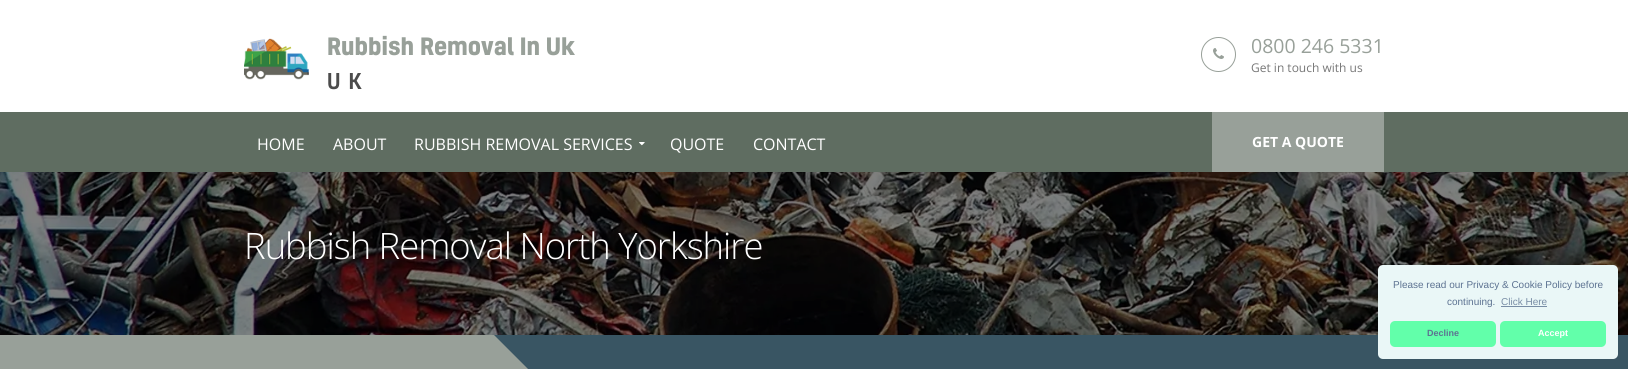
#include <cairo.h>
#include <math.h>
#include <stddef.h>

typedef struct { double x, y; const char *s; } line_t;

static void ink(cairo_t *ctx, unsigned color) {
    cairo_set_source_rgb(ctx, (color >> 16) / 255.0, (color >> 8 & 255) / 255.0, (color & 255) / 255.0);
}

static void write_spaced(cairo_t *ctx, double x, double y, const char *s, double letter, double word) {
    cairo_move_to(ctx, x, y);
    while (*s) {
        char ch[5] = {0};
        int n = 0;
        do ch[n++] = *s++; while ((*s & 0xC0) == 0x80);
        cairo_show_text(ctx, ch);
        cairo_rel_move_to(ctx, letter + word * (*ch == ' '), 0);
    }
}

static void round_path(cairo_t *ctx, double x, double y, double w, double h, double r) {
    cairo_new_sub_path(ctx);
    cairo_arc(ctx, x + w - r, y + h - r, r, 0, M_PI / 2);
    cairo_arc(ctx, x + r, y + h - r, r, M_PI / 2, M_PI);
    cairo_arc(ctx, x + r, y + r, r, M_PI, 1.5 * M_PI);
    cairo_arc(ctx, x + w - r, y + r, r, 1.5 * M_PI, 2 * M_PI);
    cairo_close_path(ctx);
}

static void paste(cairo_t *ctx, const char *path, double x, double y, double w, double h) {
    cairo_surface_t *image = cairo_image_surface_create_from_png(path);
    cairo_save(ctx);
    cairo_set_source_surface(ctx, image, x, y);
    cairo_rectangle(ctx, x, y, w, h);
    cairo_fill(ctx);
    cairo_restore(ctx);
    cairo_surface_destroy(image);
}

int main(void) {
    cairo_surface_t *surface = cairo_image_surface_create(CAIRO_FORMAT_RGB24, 1628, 369);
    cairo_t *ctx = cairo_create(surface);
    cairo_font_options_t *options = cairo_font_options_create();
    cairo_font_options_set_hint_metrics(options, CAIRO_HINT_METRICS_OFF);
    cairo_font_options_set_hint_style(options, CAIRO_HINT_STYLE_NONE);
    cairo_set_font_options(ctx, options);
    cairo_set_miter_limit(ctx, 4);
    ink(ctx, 0xFFFFFF);
    cairo_paint(ctx);
    paste(ctx, "media/1.png", 244, 38, 65, 42);
    cairo_select_font_face(ctx, "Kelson", CAIRO_FONT_SLANT_NORMAL, CAIRO_FONT_WEIGHT_BOLD);
    cairo_set_font_size(ctx, 23);
    ink(ctx, 0x98A099);
    cairo_move_to(ctx, 327, 55);
    cairo_show_text(ctx, "Rubbish Removal In Uk");
    cairo_select_font_face(ctx, "Kelson Medium", CAIRO_FONT_SLANT_NORMAL, CAIRO_FONT_WEIGHT_NORMAL);
    cairo_set_font_size(ctx, 21);
    ink(ctx, 0x4C4C4C);
    write_spaced(ctx, 327, 89, "UK", 8, 0);
    cairo_new_path(ctx);
    cairo_arc(ctx, 1218.5, 54.5, 17, 0, 2 * M_PI);
    ink(ctx, 0x98A099);
    cairo_set_line_width(ctx, 1);
    cairo_stroke(ctx);
    paste(ctx, "media/2.png", 1213, 48, 11, 11);
    cairo_select_font_face(ctx, "Open Sans", CAIRO_FONT_SLANT_NORMAL, CAIRO_FONT_WEIGHT_NORMAL);
    cairo_set_font_size(ctx, 19.5);
    cairo_move_to(ctx, 1251, 53);
    cairo_show_text(ctx, "0800 246 5331");
    cairo_set_font_size(ctx, 12);
    ink(ctx, 0x777777);
    cairo_move_to(ctx, 1251, 72);
    cairo_show_text(ctx, "Get in touch with us");
    ink(ctx, 0x5F6D61);
    cairo_rectangle(ctx, 0, 112, 1628, 60);
    cairo_fill(ctx);
    cairo_set_font_size(ctx, 16);
    ink(ctx, 0xFFFFFF);
    {
        static const line_t items[] = {
            {257, 150, "HOME"},
            {333, 150, "ABOUT"},
            {414, 150, "RUBBISH REMOVAL SERVICES"},
        };
        for (size_t i = 0; i < sizeof items / sizeof *items; i++) {
            cairo_move_to(ctx, items[i].x, items[i].y);
            cairo_show_text(ctx, items[i].s);
        }
    }
    paste(ctx, "media/3.png", 639, 142, 6, 4);
    cairo_move_to(ctx, 670, 150);
    cairo_show_text(ctx, "QUOTE");
    cairo_move_to(ctx, 753, 150);
    cairo_show_text(ctx, "CONTACT");
    ink(ctx, 0x98A099);
    cairo_rectangle(ctx, 1212, 112, 172, 60);
    cairo_fill(ctx);
    cairo_select_font_face(ctx, "Open Sans", CAIRO_FONT_SLANT_NORMAL, CAIRO_FONT_WEIGHT_BOLD);
    cairo_set_font_size(ctx, 14);
    ink(ctx, 0xFFFFFF);
    cairo_move_to(ctx, 1252, 147);
    cairo_show_text(ctx, "GET A QUOTE");
    paste(ctx, "media/4.png", 0, 172, 1628, 163);
    cairo_select_font_face(ctx, "Open Sans Light", CAIRO_FONT_SLANT_NORMAL, CAIRO_FONT_WEIGHT_NORMAL);
    cairo_set_font_size(ctx, 36.4);
    write_spaced(ctx, 244, 259, "Rubbish Removal North Yorkshire", -1, 0);
    ink(ctx, 0x395563);
    cairo_rectangle(ctx, 544, 335, 1084, 34);
    cairo_fill(ctx);
    ink(ctx, 0x98A099);
    cairo_rectangle(ctx, 0, 335, 528, 34);
    cairo_fill(ctx);
    ink(ctx, 0x395563);
    cairo_new_path(ctx);
    cairo_move_to(ctx, 544, 335);
    cairo_line_to(ctx, 544, 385);
    cairo_line_to(ctx, 494, 335);
    cairo_close_path(ctx);
    cairo_fill(ctx);
    ink(ctx, 0xEAF7F7);
    round_path(ctx, 1378, 265, 240, 94, 5);
    cairo_fill(ctx);
    cairo_select_font_face(ctx, "Liberation Sans", CAIRO_FONT_SLANT_NORMAL, CAIRO_FONT_WEIGHT_NORMAL);
    cairo_set_font_size(ctx, 10);
    ink(ctx, 0x5C7291);
    cairo_move_to(ctx, 1393, 288);
    cairo_show_text(ctx, "Please read our Privacy & Cookie Policy before");
    cairo_move_to(ctx, 1447, 305);
    cairo_show_text(ctx, "continuing.");
    ink(ctx, 0x788DA5);
    cairo_move_to(ctx, 1501, 305);
    cairo_show_text(ctx, "Click Here");
    cairo_rectangle(ctx, 1501, 306, 46, 1);
    cairo_fill(ctx);
    ink(ctx, 0x62FFAA);
    round_path(ctx, 1390, 321, 106, 26, 5);
    cairo_fill(ctx);
    cairo_select_font_face(ctx, "Liberation Sans", CAIRO_FONT_SLANT_NORMAL, CAIRO_FONT_WEIGHT_BOLD);
    cairo_set_font_size(ctx, 9);
    ink(ctx, 0x5C7291);
    cairo_move_to(ctx, 1427, 336);
    cairo_show_text(ctx, "Decline");
    ink(ctx, 0x62FFAA);
    round_path(ctx, 1500, 321, 106, 26, 5);
    cairo_fill(ctx);
    ink(ctx, 0xFFFFFF);
    cairo_move_to(ctx, 1538, 336);
    cairo_show_text(ctx, "Accept");
    cairo_surface_write_to_png(surface, "image.png");
    cairo_font_options_destroy(options);
    cairo_destroy(ctx);
    cairo_surface_destroy(surface);
    return 0;
}
